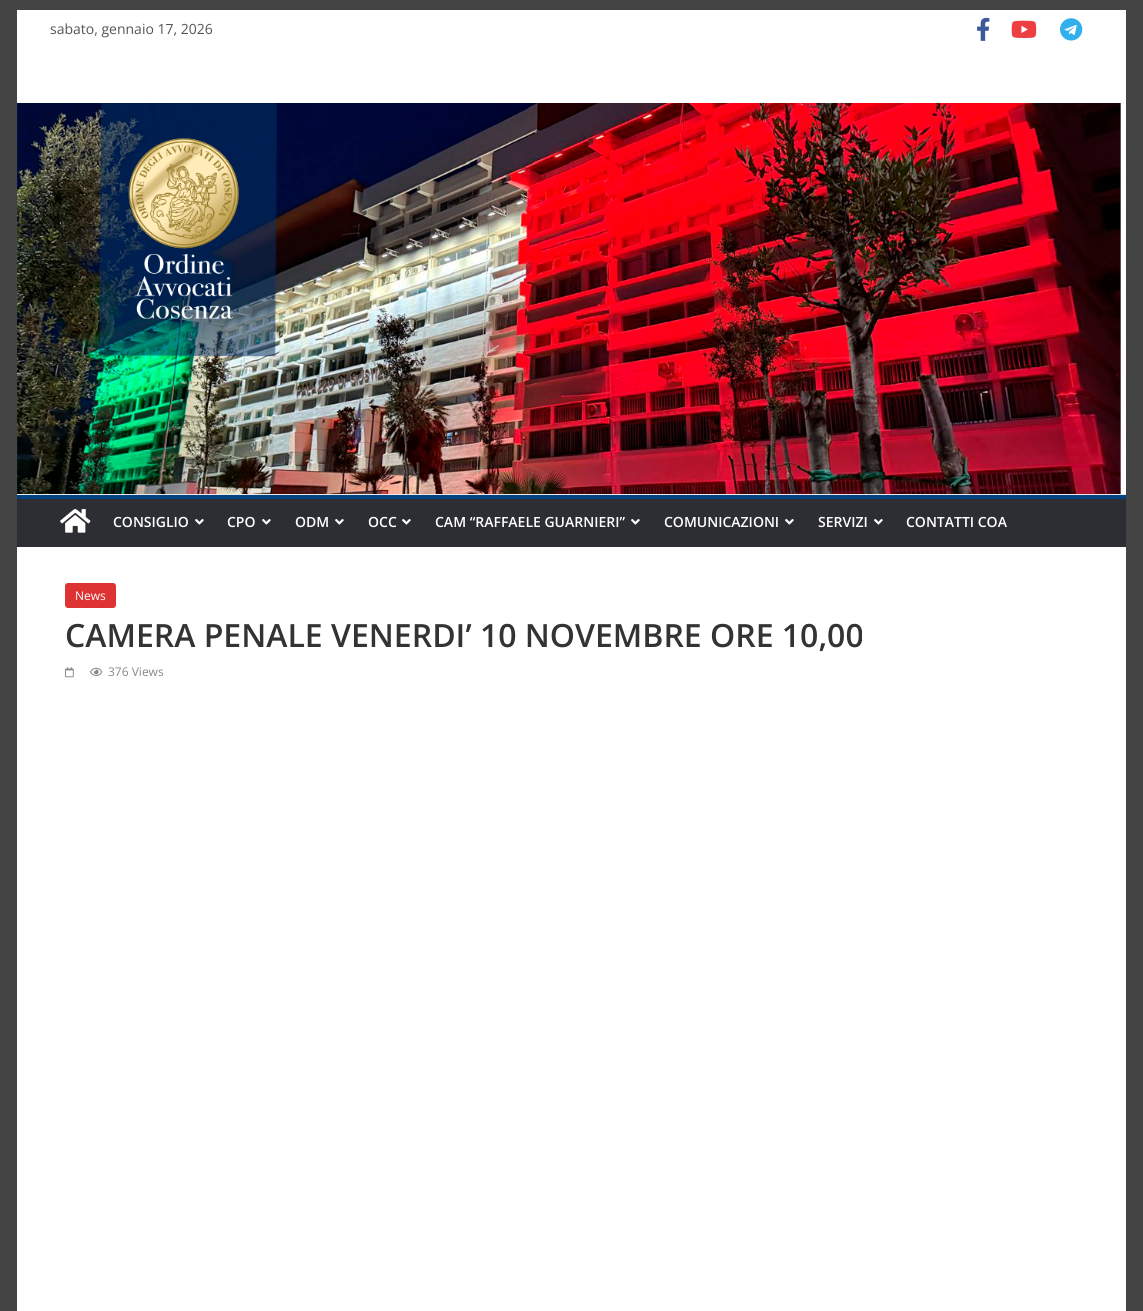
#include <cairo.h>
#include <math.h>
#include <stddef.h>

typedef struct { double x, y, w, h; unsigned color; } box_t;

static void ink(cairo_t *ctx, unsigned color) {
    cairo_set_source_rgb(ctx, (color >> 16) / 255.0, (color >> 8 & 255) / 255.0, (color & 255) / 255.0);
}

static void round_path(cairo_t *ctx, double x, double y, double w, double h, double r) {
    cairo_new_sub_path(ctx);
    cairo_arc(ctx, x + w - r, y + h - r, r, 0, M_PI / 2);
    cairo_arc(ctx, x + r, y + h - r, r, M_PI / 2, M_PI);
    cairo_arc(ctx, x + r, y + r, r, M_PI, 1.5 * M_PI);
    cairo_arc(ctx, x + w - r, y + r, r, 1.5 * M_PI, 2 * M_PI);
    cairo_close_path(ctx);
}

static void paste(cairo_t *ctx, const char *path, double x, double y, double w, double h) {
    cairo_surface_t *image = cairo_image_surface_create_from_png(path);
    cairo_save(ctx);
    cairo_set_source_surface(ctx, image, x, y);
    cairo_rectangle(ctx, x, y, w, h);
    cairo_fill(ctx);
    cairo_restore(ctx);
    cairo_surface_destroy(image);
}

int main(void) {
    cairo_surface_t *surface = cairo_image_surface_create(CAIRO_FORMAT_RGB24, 1143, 1311);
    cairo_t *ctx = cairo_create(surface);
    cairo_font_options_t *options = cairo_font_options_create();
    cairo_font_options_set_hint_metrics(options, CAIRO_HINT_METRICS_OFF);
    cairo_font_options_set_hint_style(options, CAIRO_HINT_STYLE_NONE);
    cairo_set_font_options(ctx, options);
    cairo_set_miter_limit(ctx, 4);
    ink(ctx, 0x444444);
    cairo_paint(ctx);
    ink(ctx, 0xFFFFFF);
    cairo_rectangle(ctx, 17, 10, 1109, 484);
    cairo_fill(ctx);
    cairo_select_font_face(ctx, "Open Sans", CAIRO_FONT_SLANT_NORMAL, CAIRO_FONT_WEIGHT_NORMAL);
    cairo_set_font_size(ctx, 14);
    ink(ctx, 0x555555);
    cairo_move_to(ctx, 50, 34);
    cairo_show_text(ctx, "sabato, gennaio 17, 2026");
    paste(ctx, "media/1.png", 977, 17, 13, 24);
    paste(ctx, "media/2.png", 1011, 20, 26, 18);
    paste(ctx, "media/3.png", 1060, 18, 23, 23);
    paste(ctx, "media/4.png", 17, 103, 1104, 391);
    {
        static const box_t items[] = {
            {17, 494, 1109, 1, 0xEAEAEA},
            {17, 499, 1109, 48, 0x2C2E34},
            {17, 495, 1109, 4, 0x004380},
        };
        for (size_t i = 0; i < sizeof items / sizeof *items; i++) {
            ink(ctx, items[i].color);
            cairo_rectangle(ctx, items[i].x, items[i].y, items[i].w, items[i].h);
            cairo_fill(ctx);
        }
    }
    paste(ctx, "media/5.png", 60, 509, 31, 24);
    cairo_select_font_face(ctx, "Open Sans SemiBold", CAIRO_FONT_SLANT_NORMAL, CAIRO_FONT_WEIGHT_NORMAL);
    ink(ctx, 0xFFFFFF);
    cairo_move_to(ctx, 113, 527);
    cairo_show_text(ctx, "CONSIGLIO");
    paste(ctx, "media/6.png", 195, 519, 9, 6);
    cairo_move_to(ctx, 227, 527);
    cairo_show_text(ctx, "CPO");
    paste(ctx, "media/6.png", 262, 519, 9, 6);
    cairo_move_to(ctx, 295, 527);
    cairo_show_text(ctx, "ODM");
    paste(ctx, "media/6.png", 335, 519, 9, 6);
    cairo_move_to(ctx, 368, 527);
    cairo_show_text(ctx, "OCC");
    paste(ctx, "media/6.png", 402, 519, 9, 6);
    cairo_move_to(ctx, 435, 527);
    cairo_show_text(ctx, "CAM “RAFFAELE GUARNIERI”");
    paste(ctx, "media/6.png", 631, 519, 9, 6);
    cairo_move_to(ctx, 664, 527);
    cairo_show_text(ctx, "COMUNICAZIONI");
    paste(ctx, "media/6.png", 785, 519, 9, 6);
    cairo_move_to(ctx, 818, 527);
    cairo_show_text(ctx, "SERVIZI");
    paste(ctx, "media/6.png", 874, 519, 9, 6);
    cairo_move_to(ctx, 906, 527);
    cairo_show_text(ctx, "CONTATTI COA");
    cairo_rectangle(ctx, 17, 547, 1109, 764);
    cairo_fill(ctx);
    ink(ctx, 0xDD3333);
    round_path(ctx, 65, 583, 51, 25, 3);
    cairo_fill(ctx);
    cairo_select_font_face(ctx, "Open Sans", CAIRO_FONT_SLANT_NORMAL, CAIRO_FONT_WEIGHT_NORMAL);
    cairo_set_font_size(ctx, 12);
    ink(ctx, 0xFFFFFF);
    cairo_move_to(ctx, 75, 600);
    cairo_show_text(ctx, "News");
    cairo_select_font_face(ctx, "Open Sans SemiBold", CAIRO_FONT_SLANT_NORMAL, CAIRO_FONT_WEIGHT_NORMAL);
    cairo_set_font_size(ctx, 32);
    ink(ctx, 0x333333);
    cairo_move_to(ctx, 65, 647);
    cairo_show_text(ctx, "CAMERA PENALE VENERDI’ 10 NOVEMBRE ORE 10,00");
    paste(ctx, "media/7.png", 65, 667, 9, 11);
    paste(ctx, "media/8.png", 90, 667, 13, 9);
    cairo_select_font_face(ctx, "Open Sans", CAIRO_FONT_SLANT_NORMAL, CAIRO_FONT_WEIGHT_NORMAL);
    cairo_set_font_size(ctx, 12);
    ink(ctx, 0x888888);
    cairo_move_to(ctx, 108, 676);
    cairo_show_text(ctx, "376 Views");
    cairo_surface_write_to_png(surface, "image.png");
    cairo_font_options_destroy(options);
    cairo_destroy(ctx);
    cairo_surface_destroy(surface);
    return 0;
}
